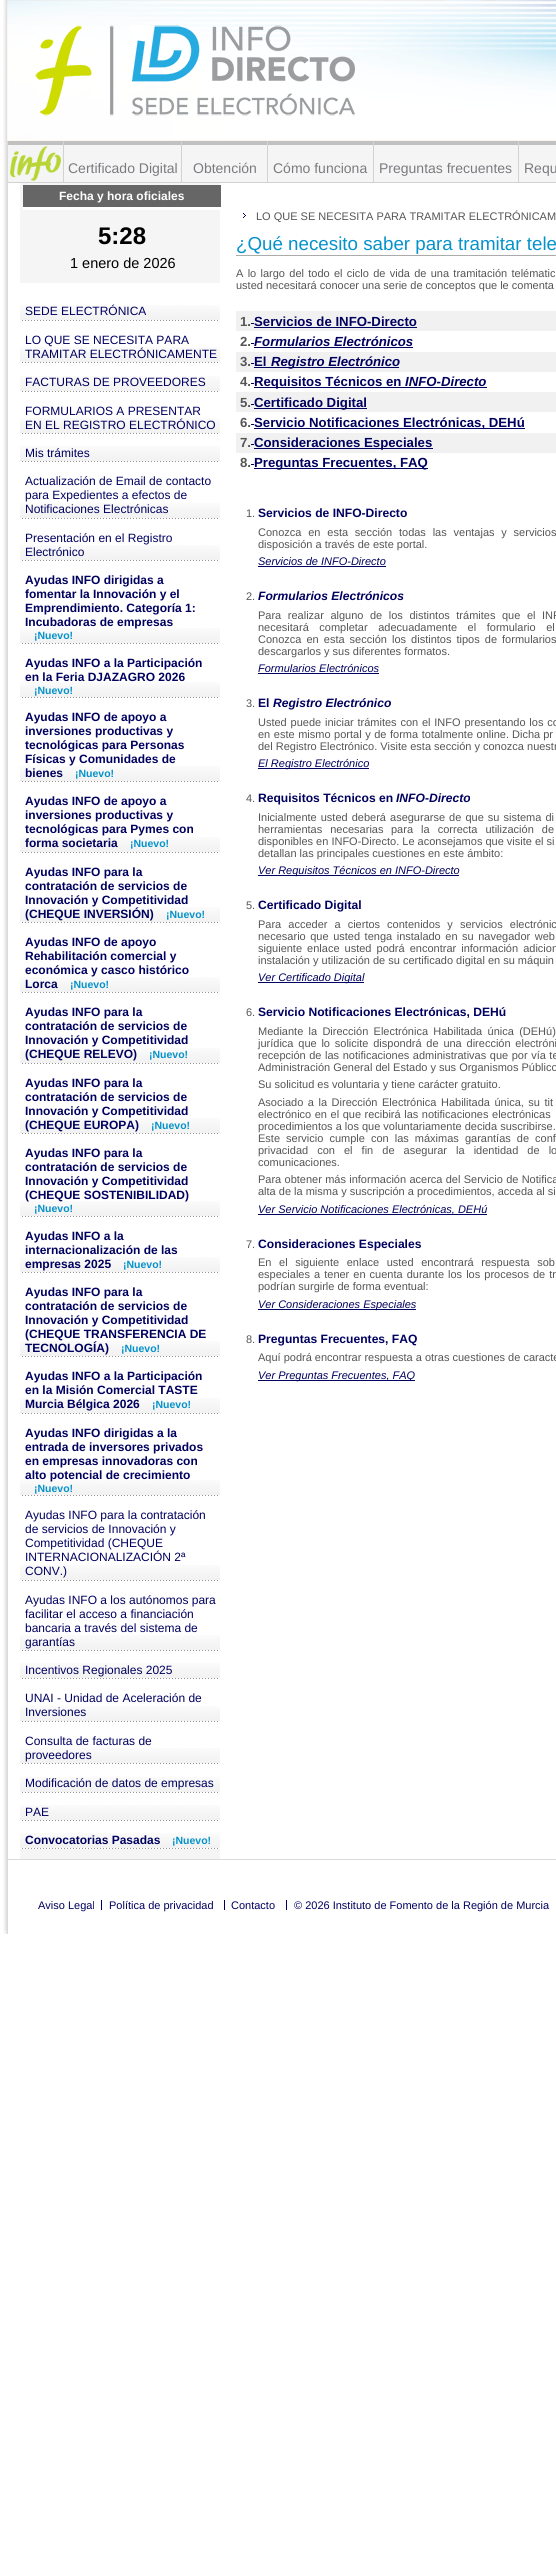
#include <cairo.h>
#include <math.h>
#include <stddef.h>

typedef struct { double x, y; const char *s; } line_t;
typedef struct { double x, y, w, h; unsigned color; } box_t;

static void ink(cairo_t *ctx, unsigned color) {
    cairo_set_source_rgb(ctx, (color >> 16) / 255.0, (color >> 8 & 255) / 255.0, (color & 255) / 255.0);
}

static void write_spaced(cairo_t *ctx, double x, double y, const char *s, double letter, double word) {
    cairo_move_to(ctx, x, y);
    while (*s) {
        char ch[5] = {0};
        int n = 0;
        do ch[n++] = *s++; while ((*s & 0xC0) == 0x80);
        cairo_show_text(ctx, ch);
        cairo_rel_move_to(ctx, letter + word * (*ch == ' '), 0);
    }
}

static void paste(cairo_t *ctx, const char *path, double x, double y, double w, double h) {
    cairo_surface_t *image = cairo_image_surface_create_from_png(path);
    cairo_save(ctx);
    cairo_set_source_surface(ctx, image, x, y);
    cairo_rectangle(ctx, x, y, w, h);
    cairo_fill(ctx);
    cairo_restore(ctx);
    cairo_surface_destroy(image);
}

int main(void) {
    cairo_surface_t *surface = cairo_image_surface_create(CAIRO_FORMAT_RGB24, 556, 2566);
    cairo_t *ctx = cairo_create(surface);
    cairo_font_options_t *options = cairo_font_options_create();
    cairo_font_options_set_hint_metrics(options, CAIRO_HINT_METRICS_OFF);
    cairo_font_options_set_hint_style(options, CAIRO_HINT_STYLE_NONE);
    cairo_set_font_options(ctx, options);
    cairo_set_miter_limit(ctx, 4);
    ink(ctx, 0xFFFFFF);
    cairo_paint(ctx);
    paste(ctx, "media/1.png", 3, 0, 217, 1859);
    paste(ctx, "media/2.png", 7, 0, 549, 141);
    ink(ctx, 0xF5F5F5);
    cairo_rectangle(ctx, 8, 141, 12, 41);
    cairo_fill(ctx);
    ink(ctx, 0xC1C1C1);
    cairo_new_path(ctx);
    cairo_move_to(ctx, 8, 141);
    cairo_line_to(ctx, 64, 141);
    cairo_line_to(ctx, 63, 145);
    cairo_line_to(ctx, 8, 145);
    cairo_close_path(ctx);
    cairo_fill(ctx);
    ink(ctx, 0xD2D2D2);
    cairo_new_path(ctx);
    cairo_move_to(ctx, 64, 141);
    cairo_line_to(ctx, 64, 183);
    cairo_line_to(ctx, 63, 182);
    cairo_line_to(ctx, 63, 145);
    cairo_close_path(ctx);
    cairo_fill(ctx);
    cairo_rectangle(ctx, 8, 182, 56, 1);
    cairo_fill(ctx);
    paste(ctx, "media/3.png", 10, 146, 51, 35);
    ink(ctx, 0xC1C1C1);
    cairo_new_path(ctx);
    cairo_move_to(ctx, 64, 141);
    cairo_line_to(ctx, 182, 141);
    cairo_line_to(ctx, 181, 145);
    cairo_line_to(ctx, 64, 145);
    cairo_close_path(ctx);
    cairo_fill(ctx);
    ink(ctx, 0xD2D2D2);
    cairo_new_path(ctx);
    cairo_move_to(ctx, 182, 141);
    cairo_line_to(ctx, 182, 183);
    cairo_line_to(ctx, 181, 182);
    cairo_line_to(ctx, 181, 145);
    cairo_close_path(ctx);
    cairo_fill(ctx);
    cairo_rectangle(ctx, 64, 182, 118, 1);
    cairo_fill(ctx);
    cairo_select_font_face(ctx, "Liberation Sans", CAIRO_FONT_SLANT_NORMAL, CAIRO_FONT_WEIGHT_NORMAL);
    cairo_set_font_size(ctx, 14);
    ink(ctx, 0x7A7B7F);
    cairo_move_to(ctx, 68, 173);
    cairo_show_text(ctx, "Certificado Digital");
    ink(ctx, 0xF5F5F5);
    cairo_rectangle(ctx, 220, 141, 299, 41);
    cairo_fill(ctx);
    ink(ctx, 0xC1C1C1);
    cairo_new_path(ctx);
    cairo_move_to(ctx, 182, 141);
    cairo_line_to(ctx, 268, 141);
    cairo_line_to(ctx, 267, 145);
    cairo_line_to(ctx, 182, 145);
    cairo_close_path(ctx);
    cairo_fill(ctx);
    ink(ctx, 0xD2D2D2);
    cairo_new_path(ctx);
    cairo_move_to(ctx, 268, 141);
    cairo_line_to(ctx, 268, 183);
    cairo_line_to(ctx, 267, 182);
    cairo_line_to(ctx, 267, 145);
    cairo_close_path(ctx);
    cairo_fill(ctx);
    cairo_rectangle(ctx, 182, 182, 86, 1);
    cairo_fill(ctx);
    ink(ctx, 0x7A7B7F);
    cairo_move_to(ctx, 193, 173);
    cairo_show_text(ctx, "Obtención");
    ink(ctx, 0xC1C1C1);
    cairo_new_path(ctx);
    cairo_move_to(ctx, 268, 141);
    cairo_line_to(ctx, 374, 141);
    cairo_line_to(ctx, 373, 145);
    cairo_line_to(ctx, 268, 145);
    cairo_close_path(ctx);
    cairo_fill(ctx);
    ink(ctx, 0xD2D2D2);
    cairo_new_path(ctx);
    cairo_move_to(ctx, 374, 141);
    cairo_line_to(ctx, 374, 183);
    cairo_line_to(ctx, 373, 182);
    cairo_line_to(ctx, 373, 145);
    cairo_close_path(ctx);
    cairo_fill(ctx);
    cairo_rectangle(ctx, 268, 182, 106, 1);
    cairo_fill(ctx);
    ink(ctx, 0x7A7B7F);
    cairo_move_to(ctx, 273, 173);
    cairo_show_text(ctx, "Cómo funciona");
    ink(ctx, 0xC1C1C1);
    cairo_new_path(ctx);
    cairo_move_to(ctx, 374, 141);
    cairo_line_to(ctx, 519, 141);
    cairo_line_to(ctx, 518, 145);
    cairo_line_to(ctx, 374, 145);
    cairo_close_path(ctx);
    cairo_fill(ctx);
    ink(ctx, 0xD2D2D2);
    cairo_new_path(ctx);
    cairo_move_to(ctx, 519, 141);
    cairo_line_to(ctx, 519, 183);
    cairo_line_to(ctx, 518, 182);
    cairo_line_to(ctx, 518, 145);
    cairo_close_path(ctx);
    cairo_fill(ctx);
    cairo_rectangle(ctx, 374, 182, 182, 1);
    cairo_fill(ctx);
    ink(ctx, 0x7A7B7F);
    cairo_move_to(ctx, 379, 173);
    cairo_show_text(ctx, "Preguntas frecuentes");
    ink(ctx, 0xF5F5F5);
    cairo_rectangle(ctx, 519, 145, 37, 37);
    cairo_fill(ctx);
    ink(ctx, 0xC1C1C1);
    cairo_new_path(ctx);
    cairo_move_to(ctx, 519, 141);
    cairo_line_to(ctx, 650, 141);
    cairo_line_to(ctx, 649, 145);
    cairo_line_to(ctx, 519, 145);
    cairo_close_path(ctx);
    cairo_fill(ctx);
    ink(ctx, 0x7A7B7F);
    cairo_move_to(ctx, 524, 173);
    cairo_show_text(ctx, "Requ");
    ink(ctx, 0x666666);
    cairo_rectangle(ctx, 23, 185, 198, 22);
    cairo_fill(ctx);
    ink(ctx, 0xFFFFFF);
    cairo_rectangle(ctx, 23, 207, 198, 3);
    cairo_fill(ctx);
    cairo_select_font_face(ctx, "Liberation Sans", CAIRO_FONT_SLANT_NORMAL, CAIRO_FONT_WEIGHT_BOLD);
    cairo_set_font_size(ctx, 12);
    cairo_move_to(ctx, 59, 200);
    cairo_show_text(ctx, "Fecha y hora oficiales");
    cairo_set_font_size(ctx, 24);
    ink(ctx, 0x000000);
    cairo_move_to(ctx, 98, 244);
    cairo_show_text(ctx, "5:28");
    cairo_select_font_face(ctx, "Liberation Sans", CAIRO_FONT_SLANT_NORMAL, CAIRO_FONT_WEIGHT_NORMAL);
    cairo_set_font_size(ctx, 14.5);
    cairo_move_to(ctx, 70, 268);
    cairo_show_text(ctx, "1 enero de 2026");
    ink(ctx, 0xFFFFFF);
    cairo_rectangle(ctx, 20, 283, 200, 1566);
    cairo_fill(ctx);
    paste(ctx, "media/4.png", 20, 305, 200, 16);
    cairo_set_font_size(ctx, 12);
    ink(ctx, 0x00005F);
    cairo_move_to(ctx, 25, 315);
    cairo_show_text(ctx, "SEDE ELECTRÓNICA");
    paste(ctx, "media/4.png", 20, 347, 200, 16);
    cairo_move_to(ctx, 25, 344);
    cairo_show_text(ctx, "LO QUE SE NECESITA PARA");
    cairo_move_to(ctx, 25, 358);
    cairo_show_text(ctx, "TRAMITAR ELECTRÓNICAMENTE");
    paste(ctx, "media/4.png", 20, 376, 200, 16);
    cairo_move_to(ctx, 25, 386);
    cairo_show_text(ctx, "FACTURAS DE PROVEEDORES");
    paste(ctx, "media/4.png", 20, 418, 200, 16);
    cairo_move_to(ctx, 25, 415);
    cairo_show_text(ctx, "FORMULARIOS A PRESENTAR");
    cairo_move_to(ctx, 25, 429);
    cairo_show_text(ctx, "EN EL REGISTRO ELECTRÓNICO");
    paste(ctx, "media/4.png", 20, 446, 200, 16);
    cairo_move_to(ctx, 25, 457);
    cairo_show_text(ctx, "Mis trámites");
    paste(ctx, "media/4.png", 20, 503, 200, 16);
    {
        static const line_t items[] = {
            {25, 485, "Actualización de Email de contacto"},
            {25, 499, "para Expedientes a efectos de"},
            {25, 513, "Notificaciones Electrónicas"},
        };
        for (size_t i = 0; i < sizeof items / sizeof *items; i++) {
            cairo_move_to(ctx, items[i].x, items[i].y);
            cairo_show_text(ctx, items[i].s);
        }
    }
    paste(ctx, "media/4.png", 20, 545, 200, 16);
    cairo_move_to(ctx, 25, 542);
    cairo_show_text(ctx, "Presentación en el Registro");
    cairo_move_to(ctx, 25, 556);
    cairo_show_text(ctx, "Electrónico");
    paste(ctx, "media/4.png", 20, 628, 200, 16);
    cairo_select_font_face(ctx, "Liberation Sans", CAIRO_FONT_SLANT_NORMAL, CAIRO_FONT_WEIGHT_BOLD);
    {
        static const line_t items[] = {
            {25, 584, "Ayudas INFO dirigidas a"},
            {25, 598, "fomentar la Innovación y el"},
            {25, 612, "Emprendimiento. Categoría 1:"},
            {25, 626, "Incubadoras de empresas"},
        };
        for (size_t i = 0; i < sizeof items / sizeof *items; i++) {
            cairo_move_to(ctx, items[i].x, items[i].y);
            cairo_show_text(ctx, items[i].s);
        }
    }
    cairo_set_font_size(ctx, 10.5);
    ink(ctx, 0x0592CB);
    cairo_move_to(ctx, 34, 639);
    cairo_show_text(ctx, "¡Nuevo!");
    paste(ctx, "media/4.png", 20, 682, 200, 16);
    cairo_set_font_size(ctx, 12);
    ink(ctx, 0x00005F);
    cairo_move_to(ctx, 25, 667);
    cairo_show_text(ctx, "Ayudas INFO a la Participación");
    cairo_move_to(ctx, 25, 681);
    cairo_show_text(ctx, "en la Feria DJAZAGRO 2026");
    cairo_set_font_size(ctx, 10.5);
    ink(ctx, 0x0592CB);
    cairo_move_to(ctx, 34, 694);
    cairo_show_text(ctx, "¡Nuevo!");
    paste(ctx, "media/4.png", 20, 766, 200, 16);
    cairo_set_font_size(ctx, 12);
    ink(ctx, 0x00005F);
    {
        static const line_t items[] = {
            {25, 721, "Ayudas INFO de apoyo a"},
            {25, 735, "inversiones productivas y"},
            {25, 749, "tecnológicas para Personas"},
            {25, 763, "Físicas y Comunidades de"},
            {25, 777, "bienes"},
        };
        for (size_t i = 0; i < sizeof items / sizeof *items; i++) {
            cairo_move_to(ctx, items[i].x, items[i].y);
            cairo_show_text(ctx, items[i].s);
        }
    }
    cairo_set_font_size(ctx, 10.5);
    ink(ctx, 0x0592CB);
    cairo_move_to(ctx, 75, 777);
    cairo_show_text(ctx, "¡Nuevo!");
    paste(ctx, "media/4.png", 20, 837, 200, 16);
    cairo_set_font_size(ctx, 12);
    ink(ctx, 0x00005F);
    {
        static const line_t items[] = {
            {25, 805, "Ayudas INFO de apoyo a"},
            {25, 819, "inversiones productivas y"},
            {25, 833, "tecnológicas para Pymes con"},
            {25, 847, "forma societaria"},
        };
        for (size_t i = 0; i < sizeof items / sizeof *items; i++) {
            cairo_move_to(ctx, items[i].x, items[i].y);
            cairo_show_text(ctx, items[i].s);
        }
    }
    cairo_set_font_size(ctx, 10.5);
    ink(ctx, 0x0592CB);
    cairo_move_to(ctx, 130, 847);
    cairo_show_text(ctx, "¡Nuevo!");
    paste(ctx, "media/4.png", 20, 907, 200, 16);
    cairo_set_font_size(ctx, 12);
    ink(ctx, 0x00005F);
    {
        static const line_t items[] = {
            {25, 876, "Ayudas INFO para la"},
            {25, 890, "contratación de servicios de"},
            {25, 904, "Innovación y Competitividad"},
            {25, 918, "(CHEQUE INVERSIÓN)"},
        };
        for (size_t i = 0; i < sizeof items / sizeof *items; i++) {
            cairo_move_to(ctx, items[i].x, items[i].y);
            cairo_show_text(ctx, items[i].s);
        }
    }
    cairo_set_font_size(ctx, 10.5);
    ink(ctx, 0x0592CB);
    cairo_move_to(ctx, 166, 918);
    cairo_show_text(ctx, "¡Nuevo!");
    paste(ctx, "media/4.png", 20, 977, 200, 16);
    cairo_set_font_size(ctx, 12);
    ink(ctx, 0x00005F);
    {
        static const line_t items[] = {
            {25, 946, "Ayudas INFO de apoyo"},
            {25, 960, "Rehabilitación comercial y"},
            {25, 974, "económica y casco histórico"},
            {25, 988, "Lorca"},
        };
        for (size_t i = 0; i < sizeof items / sizeof *items; i++) {
            cairo_move_to(ctx, items[i].x, items[i].y);
            cairo_show_text(ctx, items[i].s);
        }
    }
    cairo_set_font_size(ctx, 10.5);
    ink(ctx, 0x0592CB);
    cairo_move_to(ctx, 70, 988);
    cairo_show_text(ctx, "¡Nuevo!");
    paste(ctx, "media/4.png", 20, 1048, 200, 16);
    cairo_set_font_size(ctx, 12);
    ink(ctx, 0x00005F);
    {
        static const line_t items[] = {
            {25, 1016, "Ayudas INFO para la"},
            {25, 1030, "contratación de servicios de"},
            {25, 1044, "Innovación y Competitividad"},
            {25, 1058, "(CHEQUE RELEVO)"},
        };
        for (size_t i = 0; i < sizeof items / sizeof *items; i++) {
            cairo_move_to(ctx, items[i].x, items[i].y);
            cairo_show_text(ctx, items[i].s);
        }
    }
    cairo_set_font_size(ctx, 10.5);
    ink(ctx, 0x0592CB);
    cairo_move_to(ctx, 149, 1058);
    cairo_show_text(ctx, "¡Nuevo!");
    paste(ctx, "media/4.png", 20, 1118, 200, 16);
    cairo_set_font_size(ctx, 12);
    ink(ctx, 0x00005F);
    {
        static const line_t items[] = {
            {25, 1087, "Ayudas INFO para la"},
            {25, 1101, "contratación de servicios de"},
            {25, 1115, "Innovación y Competitividad"},
            {25, 1129, "(CHEQUE EUROPA)"},
        };
        for (size_t i = 0; i < sizeof items / sizeof *items; i++) {
            cairo_move_to(ctx, items[i].x, items[i].y);
            cairo_show_text(ctx, items[i].s);
        }
    }
    cairo_set_font_size(ctx, 10.5);
    ink(ctx, 0x0592CB);
    cairo_move_to(ctx, 151, 1129);
    cairo_show_text(ctx, "¡Nuevo!");
    paste(ctx, "media/4.png", 20, 1201, 200, 16);
    cairo_set_font_size(ctx, 12);
    ink(ctx, 0x00005F);
    {
        static const line_t items[] = {
            {25, 1157, "Ayudas INFO para la"},
            {25, 1171, "contratación de servicios de"},
            {25, 1185, "Innovación y Competitividad"},
            {25, 1199, "(CHEQUE SOSTENIBILIDAD)"},
        };
        for (size_t i = 0; i < sizeof items / sizeof *items; i++) {
            cairo_move_to(ctx, items[i].x, items[i].y);
            cairo_show_text(ctx, items[i].s);
        }
    }
    cairo_set_font_size(ctx, 10.5);
    ink(ctx, 0x0592CB);
    cairo_move_to(ctx, 34, 1212);
    cairo_show_text(ctx, "¡Nuevo!");
    paste(ctx, "media/4.png", 20, 1257, 200, 16);
    cairo_set_font_size(ctx, 12);
    ink(ctx, 0x00005F);
    {
        static const line_t items[] = {
            {25, 1240, "Ayudas INFO a la"},
            {25, 1254, "internacionalización de las"},
            {25, 1268, "empresas 2025"},
        };
        for (size_t i = 0; i < sizeof items / sizeof *items; i++) {
            cairo_move_to(ctx, items[i].x, items[i].y);
            cairo_show_text(ctx, items[i].s);
        }
    }
    cairo_set_font_size(ctx, 10.5);
    ink(ctx, 0x0592CB);
    cairo_move_to(ctx, 123, 1268);
    cairo_show_text(ctx, "¡Nuevo!");
    paste(ctx, "media/4.png", 20, 1341, 200, 16);
    cairo_set_font_size(ctx, 12);
    ink(ctx, 0x00005F);
    {
        static const line_t items[] = {
            {25, 1296, "Ayudas INFO para la"},
            {25, 1310, "contratación de servicios de"},
            {25, 1324, "Innovación y Competitividad"},
            {25, 1338, "(CHEQUE TRANSFERENCIA DE"},
            {25, 1352, "TECNOLOGÍA)"},
        };
        for (size_t i = 0; i < sizeof items / sizeof *items; i++) {
            cairo_move_to(ctx, items[i].x, items[i].y);
            cairo_show_text(ctx, items[i].s);
        }
    }
    cairo_set_font_size(ctx, 10.5);
    ink(ctx, 0x0592CB);
    cairo_move_to(ctx, 121, 1352);
    cairo_show_text(ctx, "¡Nuevo!");
    paste(ctx, "media/4.png", 20, 1398, 200, 16);
    cairo_set_font_size(ctx, 12);
    ink(ctx, 0x00005F);
    {
        static const line_t items[] = {
            {25, 1380, "Ayudas INFO a la Participación"},
            {25, 1394, "en la Misión Comercial TASTE"},
            {25, 1408, "Murcia Bélgica 2026"},
        };
        for (size_t i = 0; i < sizeof items / sizeof *items; i++) {
            cairo_move_to(ctx, items[i].x, items[i].y);
            cairo_show_text(ctx, items[i].s);
        }
    }
    cairo_set_font_size(ctx, 10.5);
    ink(ctx, 0x0592CB);
    cairo_move_to(ctx, 152, 1408);
    cairo_show_text(ctx, "¡Nuevo!");
    paste(ctx, "media/4.png", 20, 1480, 200, 16);
    cairo_set_font_size(ctx, 12);
    ink(ctx, 0x00005F);
    {
        static const line_t items[] = {
            {25, 1437, "Ayudas INFO dirigidas a la"},
            {25, 1451, "entrada de inversores privados"},
            {25, 1465, "en empresas innovadoras con"},
            {25, 1479, "alto potencial de crecimiento"},
        };
        for (size_t i = 0; i < sizeof items / sizeof *items; i++) {
            cairo_move_to(ctx, items[i].x, items[i].y);
            cairo_show_text(ctx, items[i].s);
        }
    }
    cairo_set_font_size(ctx, 10.5);
    ink(ctx, 0x0592CB);
    cairo_move_to(ctx, 34, 1492);
    cairo_show_text(ctx, "¡Nuevo!");
    paste(ctx, "media/4.png", 20, 1565, 200, 16);
    cairo_select_font_face(ctx, "Liberation Sans", CAIRO_FONT_SLANT_NORMAL, CAIRO_FONT_WEIGHT_NORMAL);
    cairo_set_font_size(ctx, 12);
    ink(ctx, 0x00005F);
    {
        static const line_t items[] = {
            {25, 1519, "Ayudas INFO para la contratación"},
            {25, 1533, "de servicios de Innovación y"},
            {25, 1547, "Competitividad (CHEQUE"},
            {25, 1561, "INTERNACIONALIZACIÓN 2ª"},
            {25, 1575, "CONV.)"},
        };
        for (size_t i = 0; i < sizeof items / sizeof *items; i++) {
            cairo_move_to(ctx, items[i].x, items[i].y);
            cairo_show_text(ctx, items[i].s);
        }
    }
    paste(ctx, "media/4.png", 20, 1635, 200, 16);
    {
        static const line_t items[] = {
            {25, 1604, "Ayudas INFO a los autónomos para"},
            {25, 1618, "facilitar el acceso a financiación"},
            {25, 1632, "bancaria a través del sistema de"},
            {25, 1646, "garantías"},
        };
        for (size_t i = 0; i < sizeof items / sizeof *items; i++) {
            cairo_move_to(ctx, items[i].x, items[i].y);
            cairo_show_text(ctx, items[i].s);
        }
    }
    paste(ctx, "media/4.png", 20, 1663, 200, 16);
    cairo_move_to(ctx, 25, 1674);
    cairo_show_text(ctx, "Incentivos Regionales 2025");
    paste(ctx, "media/4.png", 20, 1706, 200, 16);
    cairo_move_to(ctx, 25, 1702);
    cairo_show_text(ctx, "UNAI - Unidad de Aceleración de");
    cairo_move_to(ctx, 25, 1716);
    cairo_show_text(ctx, "Inversiones");
    paste(ctx, "media/4.png", 20, 1748, 200, 16);
    cairo_move_to(ctx, 25, 1745);
    cairo_show_text(ctx, "Consulta de facturas de");
    cairo_move_to(ctx, 25, 1759);
    cairo_show_text(ctx, "proveedores");
    paste(ctx, "media/4.png", 20, 1777, 200, 16);
    cairo_move_to(ctx, 25, 1787);
    cairo_show_text(ctx, "Modificación de datos de empresas");
    paste(ctx, "media/4.png", 20, 1805, 200, 16);
    cairo_move_to(ctx, 25, 1816);
    cairo_show_text(ctx, "PAE");
    paste(ctx, "media/4.png", 20, 1833, 200, 16);
    cairo_select_font_face(ctx, "Liberation Sans", CAIRO_FONT_SLANT_NORMAL, CAIRO_FONT_WEIGHT_BOLD);
    cairo_move_to(ctx, 25, 1844);
    cairo_show_text(ctx, "Convocatorias Pasadas");
    cairo_set_font_size(ctx, 10.5);
    ink(ctx, 0x0592CB);
    cairo_move_to(ctx, 172, 1844);
    cairo_show_text(ctx, "¡Nuevo!");
    paste(ctx, "media/5.png", 243, 213, 3, 5);
    cairo_select_font_face(ctx, "Liberation Sans", CAIRO_FONT_SLANT_NORMAL, CAIRO_FONT_WEIGHT_NORMAL);
    cairo_set_font_size(ctx, 11);
    ink(ctx, 0x555555);
    cairo_move_to(ctx, 256, 220);
    cairo_show_text(ctx, "LO QUE SE NECESITA PARA TRAMITAR ELECTRÓNICAM");
    ink(ctx, 0xABABAB);
    cairo_rectangle(ctx, 236, 255, 320, 1);
    cairo_fill(ctx);
    cairo_set_font_size(ctx, 18.75);
    ink(ctx, 0x0592CB);
    cairo_move_to(ctx, 236, 250);
    cairo_show_text(ctx, "¿Qué necesito saber para tramitar tele");
    cairo_set_font_size(ctx, 11);
    ink(ctx, 0x555555);
    write_spaced(ctx, 236, 277, "A lo largo del todo el ciclo de vida de una tramitación telématic", 0, 1.25);
    cairo_move_to(ctx, 236, 289);
    cairo_show_text(ctx, "usted necesitará conocer una serie de conceptos que le comenta");
    ink(ctx, 0xF1F1F1);
    cairo_rectangle(ctx, 236, 311, 320, 20);
    cairo_fill(ctx);
    ink(ctx, 0x000062);
    cairo_rectangle(ctx, 251, 323, 3, 1);
    cairo_fill(ctx);
    cairo_select_font_face(ctx, "Liberation Sans", CAIRO_FONT_SLANT_NORMAL, CAIRO_FONT_WEIGHT_BOLD);
    cairo_set_font_size(ctx, 13.2);
    ink(ctx, 0x555555);
    cairo_move_to(ctx, 240, 326);
    cairo_show_text(ctx, "1.");
    ink(ctx, 0x00005F);
    cairo_move_to(ctx, 254, 326);
    cairo_show_text(ctx, "Servicios de INFO-Directo");
    ink(ctx, 0x000062);
    cairo_rectangle(ctx, 254, 327, 163, 1);
    cairo_fill(ctx);
    cairo_rectangle(ctx, 251, 343, 3, 1);
    cairo_fill(ctx);
    ink(ctx, 0x555555);
    cairo_move_to(ctx, 240, 346);
    cairo_show_text(ctx, "2.");
    cairo_select_font_face(ctx, "Liberation Sans", CAIRO_FONT_SLANT_ITALIC, CAIRO_FONT_WEIGHT_BOLD);
    ink(ctx, 0x00005F);
    cairo_move_to(ctx, 254, 346);
    cairo_show_text(ctx, "Formularios Electrónicos");
    {
        static const box_t items[] = {
            {254, 347, 159, 1, 0x000062},
            {236, 352, 320, 20, 0xF1F1F1},
            {251, 363, 3, 1, 0x000062},
        };
        for (size_t i = 0; i < sizeof items / sizeof *items; i++) {
            ink(ctx, items[i].color);
            cairo_rectangle(ctx, items[i].x, items[i].y, items[i].w, items[i].h);
            cairo_fill(ctx);
        }
    }
    cairo_select_font_face(ctx, "Liberation Sans", CAIRO_FONT_SLANT_NORMAL, CAIRO_FONT_WEIGHT_BOLD);
    ink(ctx, 0x555555);
    cairo_move_to(ctx, 240, 366);
    cairo_show_text(ctx, "3.");
    ink(ctx, 0x00005F);
    cairo_move_to(ctx, 254, 366);
    cairo_show_text(ctx, "El");
    ink(ctx, 0x000062);
    cairo_rectangle(ctx, 254, 367, 145, 1);
    cairo_fill(ctx);
    cairo_select_font_face(ctx, "Liberation Sans", CAIRO_FONT_SLANT_ITALIC, CAIRO_FONT_WEIGHT_BOLD);
    ink(ctx, 0x00005F);
    cairo_move_to(ctx, 271, 366);
    cairo_show_text(ctx, "Registro Electrónico");
    ink(ctx, 0x000062);
    cairo_rectangle(ctx, 251, 383, 3, 1);
    cairo_fill(ctx);
    cairo_select_font_face(ctx, "Liberation Sans", CAIRO_FONT_SLANT_NORMAL, CAIRO_FONT_WEIGHT_BOLD);
    ink(ctx, 0x555555);
    cairo_move_to(ctx, 240, 386);
    cairo_show_text(ctx, "4.");
    ink(ctx, 0x000062);
    cairo_rectangle(ctx, 254, 387, 233, 1);
    cairo_fill(ctx);
    ink(ctx, 0x00005F);
    cairo_move_to(ctx, 254, 386);
    cairo_show_text(ctx, "Requisitos Técnicos en");
    cairo_select_font_face(ctx, "Liberation Sans", CAIRO_FONT_SLANT_ITALIC, CAIRO_FONT_WEIGHT_BOLD);
    cairo_move_to(ctx, 405, 386);
    cairo_show_text(ctx, "INFO-Directo");
    ink(ctx, 0xF1F1F1);
    cairo_rectangle(ctx, 236, 392, 320, 20);
    cairo_fill(ctx);
    ink(ctx, 0x000062);
    cairo_rectangle(ctx, 251, 404, 3, 1);
    cairo_fill(ctx);
    cairo_select_font_face(ctx, "Liberation Sans", CAIRO_FONT_SLANT_NORMAL, CAIRO_FONT_WEIGHT_BOLD);
    ink(ctx, 0x555555);
    cairo_move_to(ctx, 240, 407);
    cairo_show_text(ctx, "5.");
    ink(ctx, 0x000062);
    cairo_rectangle(ctx, 254, 408, 113, 1);
    cairo_fill(ctx);
    ink(ctx, 0x00005F);
    cairo_move_to(ctx, 254, 407);
    cairo_show_text(ctx, "Certificado Digital");
    ink(ctx, 0x000062);
    cairo_rectangle(ctx, 251, 424, 3, 1);
    cairo_fill(ctx);
    ink(ctx, 0x555555);
    cairo_move_to(ctx, 240, 427);
    cairo_show_text(ctx, "6.");
    ink(ctx, 0x000062);
    cairo_rectangle(ctx, 254, 428, 271, 1);
    cairo_fill(ctx);
    ink(ctx, 0x00005F);
    cairo_move_to(ctx, 254, 427);
    cairo_show_text(ctx, "Servicio Notificaciones Electrónicas, DEHú");
    ink(ctx, 0xF1F1F1);
    cairo_rectangle(ctx, 236, 433, 320, 20);
    cairo_fill(ctx);
    ink(ctx, 0x000062);
    cairo_rectangle(ctx, 251, 444, 3, 1);
    cairo_fill(ctx);
    ink(ctx, 0x555555);
    cairo_move_to(ctx, 240, 447);
    cairo_show_text(ctx, "7.");
    ink(ctx, 0x000062);
    cairo_rectangle(ctx, 254, 448, 179, 1);
    cairo_fill(ctx);
    ink(ctx, 0x00005F);
    cairo_move_to(ctx, 254, 447);
    cairo_show_text(ctx, "Consideraciones Especiales");
    ink(ctx, 0x000062);
    cairo_rectangle(ctx, 251, 464, 3, 1);
    cairo_fill(ctx);
    ink(ctx, 0x555555);
    cairo_move_to(ctx, 240, 467);
    cairo_show_text(ctx, "8.");
    ink(ctx, 0x000062);
    cairo_rectangle(ctx, 254, 468, 174, 1);
    cairo_fill(ctx);
    ink(ctx, 0x00005F);
    cairo_move_to(ctx, 254, 467);
    cairo_show_text(ctx, "Preguntas Frecuentes, FAQ");
    cairo_select_font_face(ctx, "Liberation Sans", CAIRO_FONT_SLANT_NORMAL, CAIRO_FONT_WEIGHT_NORMAL);
    cairo_set_font_size(ctx, 11);
    ink(ctx, 0x555555);
    cairo_move_to(ctx, 246, 517);
    cairo_show_text(ctx, "1.");
    cairo_select_font_face(ctx, "Liberation Sans", CAIRO_FONT_SLANT_NORMAL, CAIRO_FONT_WEIGHT_BOLD);
    cairo_set_font_size(ctx, 12.1);
    ink(ctx, 0x00005F);
    cairo_move_to(ctx, 258, 517);
    cairo_show_text(ctx, "Servicios de INFO-Directo");
    cairo_select_font_face(ctx, "Liberation Sans", CAIRO_FONT_SLANT_NORMAL, CAIRO_FONT_WEIGHT_NORMAL);
    cairo_set_font_size(ctx, 11);
    ink(ctx, 0x555555);
    write_spaced(ctx, 258, 536, "Conozca en esta sección todas las ventajas y servicios", 0, 3.75);
    cairo_move_to(ctx, 258, 548);
    cairo_show_text(ctx, "disposición a través de este portal.");
    cairo_select_font_face(ctx, "Liberation Sans", CAIRO_FONT_SLANT_ITALIC, CAIRO_FONT_WEIGHT_NORMAL);
    ink(ctx, 0x00005F);
    cairo_move_to(ctx, 258, 565);
    cairo_show_text(ctx, "Servicios de INFO-Directo");
    ink(ctx, 0x000062);
    cairo_rectangle(ctx, 258, 566, 128, 1);
    cairo_fill(ctx);
    cairo_select_font_face(ctx, "Liberation Sans", CAIRO_FONT_SLANT_NORMAL, CAIRO_FONT_WEIGHT_NORMAL);
    ink(ctx, 0x555555);
    cairo_move_to(ctx, 246, 600);
    cairo_show_text(ctx, "2.");
    cairo_select_font_face(ctx, "Liberation Sans", CAIRO_FONT_SLANT_ITALIC, CAIRO_FONT_WEIGHT_BOLD);
    cairo_set_font_size(ctx, 12.1);
    ink(ctx, 0x00005F);
    cairo_move_to(ctx, 258, 600);
    cairo_show_text(ctx, "Formularios Electrónicos");
    cairo_select_font_face(ctx, "Liberation Sans", CAIRO_FONT_SLANT_NORMAL, CAIRO_FONT_WEIGHT_NORMAL);
    cairo_set_font_size(ctx, 11);
    ink(ctx, 0x555555);
    write_spaced(ctx, 258, 619, "Para realizar alguno de los distintos trámites que el INF", 0, 3.5);
    write_spaced(ctx, 258, 631, "necesitará completar adecuadamente el formulario el", 0, 7.5);
    write_spaced(ctx, 258, 643, "Conozca en esta sección los distintos tipos de formularios", 0, 2);
    cairo_move_to(ctx, 258, 655);
    cairo_show_text(ctx, "descargarlos y sus diferentes formatos.");
    cairo_select_font_face(ctx, "Liberation Sans", CAIRO_FONT_SLANT_ITALIC, CAIRO_FONT_WEIGHT_NORMAL);
    ink(ctx, 0x00005F);
    cairo_move_to(ctx, 258, 672);
    cairo_show_text(ctx, "Formularios Electrónicos");
    ink(ctx, 0x000062);
    cairo_rectangle(ctx, 258, 673, 121, 1);
    cairo_fill(ctx);
    cairo_select_font_face(ctx, "Liberation Sans", CAIRO_FONT_SLANT_NORMAL, CAIRO_FONT_WEIGHT_NORMAL);
    ink(ctx, 0x555555);
    cairo_move_to(ctx, 246, 707);
    cairo_show_text(ctx, "3.");
    cairo_select_font_face(ctx, "Liberation Sans", CAIRO_FONT_SLANT_NORMAL, CAIRO_FONT_WEIGHT_BOLD);
    cairo_set_font_size(ctx, 12.1);
    ink(ctx, 0x00005F);
    cairo_move_to(ctx, 258, 707);
    cairo_show_text(ctx, "El");
    cairo_select_font_face(ctx, "Liberation Sans", CAIRO_FONT_SLANT_ITALIC, CAIRO_FONT_WEIGHT_BOLD);
    cairo_move_to(ctx, 273, 707);
    cairo_show_text(ctx, "Registro Electrónico");
    cairo_select_font_face(ctx, "Liberation Sans", CAIRO_FONT_SLANT_NORMAL, CAIRO_FONT_WEIGHT_NORMAL);
    cairo_set_font_size(ctx, 11);
    ink(ctx, 0x555555);
    write_spaced(ctx, 258, 726, "Usted puede iniciar trámites con el INFO presentando los co", 0, 0.75);
    write_spaced(ctx, 258, 738, "en este mismo portal y de forma totalmente online.", 0, 0.5);
    cairo_move_to(ctx, 512, 738);
    cairo_show_text(ctx, "Dicha pr");
    cairo_move_to(ctx, 258, 750);
    cairo_show_text(ctx, "del Registro Electrónico. Visite esta sección y conozca nuestr");
    ink(ctx, 0x000062);
    cairo_rectangle(ctx, 258, 768, 111, 1);
    cairo_fill(ctx);
    cairo_select_font_face(ctx, "Liberation Sans", CAIRO_FONT_SLANT_ITALIC, CAIRO_FONT_WEIGHT_NORMAL);
    ink(ctx, 0x00005F);
    cairo_move_to(ctx, 258, 767);
    cairo_show_text(ctx, "El Registro Electrónico");
    cairo_select_font_face(ctx, "Liberation Sans", CAIRO_FONT_SLANT_NORMAL, CAIRO_FONT_WEIGHT_NORMAL);
    ink(ctx, 0x555555);
    cairo_move_to(ctx, 246, 802);
    cairo_show_text(ctx, "4.");
    cairo_select_font_face(ctx, "Liberation Sans", CAIRO_FONT_SLANT_NORMAL, CAIRO_FONT_WEIGHT_BOLD);
    cairo_set_font_size(ctx, 12.1);
    ink(ctx, 0x00005F);
    cairo_move_to(ctx, 258, 802);
    cairo_show_text(ctx, "Requisitos Técnicos en");
    cairo_select_font_face(ctx, "Liberation Sans", CAIRO_FONT_SLANT_ITALIC, CAIRO_FONT_WEIGHT_BOLD);
    cairo_move_to(ctx, 396, 802);
    cairo_show_text(ctx, "INFO-Directo");
    cairo_select_font_face(ctx, "Liberation Sans", CAIRO_FONT_SLANT_NORMAL, CAIRO_FONT_WEIGHT_NORMAL);
    cairo_set_font_size(ctx, 11);
    ink(ctx, 0x555555);
    write_spaced(ctx, 258, 821, "Inicialmente usted deberá asegurarse de que su sistema di", 0, 1);
    write_spaced(ctx, 258, 833, "herramientas necesarias", 0, 5);
    write_spaced(ctx, 391, 833, "para la correcta utilización de", 0, 5);
    cairo_move_to(ctx, 258, 845);
    cairo_show_text(ctx, "disponibles en INFO-Directo. Le aconsejamos que visite el si");
    cairo_move_to(ctx, 258, 857);
    cairo_show_text(ctx, "detallan las principales cuestiones en este ámbito:");
    ink(ctx, 0x000062);
    cairo_rectangle(ctx, 258, 875, 201, 1);
    cairo_fill(ctx);
    cairo_select_font_face(ctx, "Liberation Sans", CAIRO_FONT_SLANT_ITALIC, CAIRO_FONT_WEIGHT_NORMAL);
    ink(ctx, 0x00005F);
    cairo_move_to(ctx, 258, 874);
    cairo_show_text(ctx, "Ver Requisitos Técnicos en INFO-Directo");
    cairo_select_font_face(ctx, "Liberation Sans", CAIRO_FONT_SLANT_NORMAL, CAIRO_FONT_WEIGHT_NORMAL);
    ink(ctx, 0x555555);
    cairo_move_to(ctx, 246, 909);
    cairo_show_text(ctx, "5.");
    cairo_select_font_face(ctx, "Liberation Sans", CAIRO_FONT_SLANT_NORMAL, CAIRO_FONT_WEIGHT_BOLD);
    cairo_set_font_size(ctx, 12.1);
    ink(ctx, 0x00005F);
    cairo_move_to(ctx, 258, 909);
    cairo_show_text(ctx, "Certificado Digital");
    cairo_select_font_face(ctx, "Liberation Sans", CAIRO_FONT_SLANT_NORMAL, CAIRO_FONT_WEIGHT_NORMAL);
    cairo_set_font_size(ctx, 11);
    ink(ctx, 0x555555);
    write_spaced(ctx, 258, 928, "Para acceder a ciertos contenidos y servicios electrónic", 0, 4);
    write_spaced(ctx, 258, 940, "necesario que usted tenga instalado en su navegador web", 0, 1.5);
    write_spaced(ctx, 258, 952, "siguiente enlace usted podrá encontrar información adicion", 0, 2);
    cairo_move_to(ctx, 258, 964);
    cairo_show_text(ctx, "instalación y utilización de su certificado digital en su máquin");
    ink(ctx, 0x000062);
    cairo_rectangle(ctx, 258, 982, 106, 1);
    cairo_fill(ctx);
    cairo_select_font_face(ctx, "Liberation Sans", CAIRO_FONT_SLANT_ITALIC, CAIRO_FONT_WEIGHT_NORMAL);
    ink(ctx, 0x00005F);
    cairo_move_to(ctx, 258, 981);
    cairo_show_text(ctx, "Ver Certificado Digital");
    cairo_select_font_face(ctx, "Liberation Sans", CAIRO_FONT_SLANT_NORMAL, CAIRO_FONT_WEIGHT_NORMAL);
    ink(ctx, 0x555555);
    cairo_move_to(ctx, 246, 1016);
    cairo_show_text(ctx, "6.");
    cairo_select_font_face(ctx, "Liberation Sans", CAIRO_FONT_SLANT_NORMAL, CAIRO_FONT_WEIGHT_BOLD);
    cairo_set_font_size(ctx, 12.1);
    ink(ctx, 0x00005F);
    cairo_move_to(ctx, 258, 1016);
    cairo_show_text(ctx, "Servicio Notificaciones Electrónicas, DEHú");
    cairo_select_font_face(ctx, "Liberation Sans", CAIRO_FONT_SLANT_NORMAL, CAIRO_FONT_WEIGHT_NORMAL);
    cairo_set_font_size(ctx, 11);
    ink(ctx, 0x555555);
    write_spaced(ctx, 258, 1035, "Mediante la Dirección Electrónica Habilitada única (DEHú)", 0, 2.25);
    write_spaced(ctx, 258, 1047, "jurídica que lo solicite dispondrá de una dirección electróni", 0, 1.75);
    write_spaced(ctx, 258, 1059, "recepción de las notificaciones administrativas que por vía te", 0, 0.5);
    cairo_move_to(ctx, 258, 1071);
    cairo_show_text(ctx, "Administración General del Estado y sus Organismos Público");
    cairo_move_to(ctx, 258, 1088);
    cairo_show_text(ctx, "Su solicitud es voluntaria y tiene carácter gratuito.");
    write_spaced(ctx, 258, 1106, "Asociado a la Dirección Electrónica Habilitada única, su tit", 0, 1.5);
    write_spaced(ctx, 258, 1118, "electrónico en el que recibirá las notificaciones electrónicas", 0, 0.5);
    cairo_move_to(ctx, 258, 1130);
    cairo_show_text(ctx, "procedimientos a los que voluntariamente decida suscribirse.");
    write_spaced(ctx, 258, 1142, "Este servicio cumple con las máximas garantías de confi", 0, 3);
    write_spaced(ctx, 258, 1154, "privacidad con el fin de asegurar la identidad de lo", 0, 6);
    cairo_move_to(ctx, 258, 1166);
    cairo_show_text(ctx, "comunicaciones.");
    write_spaced(ctx, 258, 1183, "Para obtener más información acerca del Servicio de Notifica", 0, 0.25);
    cairo_move_to(ctx, 258, 1195);
    cairo_show_text(ctx, "alta de la misma y suscripción a procedimientos, acceda al si");
    ink(ctx, 0x000062);
    cairo_rectangle(ctx, 258, 1214, 229, 1);
    cairo_fill(ctx);
    cairo_select_font_face(ctx, "Liberation Sans", CAIRO_FONT_SLANT_ITALIC, CAIRO_FONT_WEIGHT_NORMAL);
    ink(ctx, 0x00005F);
    cairo_move_to(ctx, 258, 1213);
    cairo_show_text(ctx, "Ver Servicio Notificaciones Electrónicas, DEHú");
    cairo_select_font_face(ctx, "Liberation Sans", CAIRO_FONT_SLANT_NORMAL, CAIRO_FONT_WEIGHT_NORMAL);
    ink(ctx, 0x555555);
    cairo_move_to(ctx, 246, 1248);
    cairo_show_text(ctx, "7.");
    cairo_select_font_face(ctx, "Liberation Sans", CAIRO_FONT_SLANT_NORMAL, CAIRO_FONT_WEIGHT_BOLD);
    cairo_set_font_size(ctx, 12.1);
    ink(ctx, 0x00005F);
    cairo_move_to(ctx, 258, 1248);
    cairo_show_text(ctx, "Consideraciones Especiales");
    cairo_select_font_face(ctx, "Liberation Sans", CAIRO_FONT_SLANT_NORMAL, CAIRO_FONT_WEIGHT_NORMAL);
    cairo_set_font_size(ctx, 11);
    ink(ctx, 0x555555);
    write_spaced(ctx, 258, 1266, "En el siguiente enlace usted encontrará respuesta sob", 0, 4.5);
    write_spaced(ctx, 258, 1278, "especiales a tener en cuenta durante los los procesos de tr", 0, 1);
    cairo_move_to(ctx, 258, 1290);
    cairo_show_text(ctx, "podrían surgirle de forma eventual:");
    ink(ctx, 0x000062);
    cairo_rectangle(ctx, 258, 1309, 158, 1);
    cairo_fill(ctx);
    cairo_select_font_face(ctx, "Liberation Sans", CAIRO_FONT_SLANT_ITALIC, CAIRO_FONT_WEIGHT_NORMAL);
    ink(ctx, 0x00005F);
    cairo_move_to(ctx, 258, 1308);
    cairo_show_text(ctx, "Ver Consideraciones Especiales");
    cairo_select_font_face(ctx, "Liberation Sans", CAIRO_FONT_SLANT_NORMAL, CAIRO_FONT_WEIGHT_NORMAL);
    ink(ctx, 0x555555);
    cairo_move_to(ctx, 246, 1343);
    cairo_show_text(ctx, "8.");
    cairo_select_font_face(ctx, "Liberation Sans", CAIRO_FONT_SLANT_NORMAL, CAIRO_FONT_WEIGHT_BOLD);
    cairo_set_font_size(ctx, 12.1);
    ink(ctx, 0x00005F);
    cairo_move_to(ctx, 258, 1343);
    cairo_show_text(ctx, "Preguntas Frecuentes, FAQ");
    cairo_select_font_face(ctx, "Liberation Sans", CAIRO_FONT_SLANT_NORMAL, CAIRO_FONT_WEIGHT_NORMAL);
    cairo_set_font_size(ctx, 11);
    ink(ctx, 0x555555);
    cairo_move_to(ctx, 258, 1361);
    cairo_show_text(ctx, "Aquí podrá encontrar respuesta a otras cuestiones de caracte");
    ink(ctx, 0x000062);
    cairo_rectangle(ctx, 258, 1380, 157, 1);
    cairo_fill(ctx);
    cairo_select_font_face(ctx, "Liberation Sans", CAIRO_FONT_SLANT_ITALIC, CAIRO_FONT_WEIGHT_NORMAL);
    ink(ctx, 0x00005F);
    cairo_move_to(ctx, 258, 1379);
    cairo_show_text(ctx, "Ver Preguntas Frecuentes, FAQ");
    paste(ctx, "media/6.png", 3, 1859, 553, 75);
    cairo_select_font_face(ctx, "Liberation Sans", CAIRO_FONT_SLANT_NORMAL, CAIRO_FONT_WEIGHT_NORMAL);
    cairo_move_to(ctx, 38, 1909);
    cairo_show_text(ctx, "Aviso Legal");
    cairo_move_to(ctx, 109, 1909);
    cairo_show_text(ctx, "Política de privacidad");
    ink(ctx, 0x000062);
    cairo_rectangle(ctx, 101, 1900, 1, 10);
    cairo_fill(ctx);
    ink(ctx, 0x00005F);
    cairo_move_to(ctx, 231, 1909);
    cairo_show_text(ctx, "Contacto");
    ink(ctx, 0x000062);
    cairo_rectangle(ctx, 224, 1900, 1, 10);
    cairo_fill(ctx);
    ink(ctx, 0x00005F);
    cairo_move_to(ctx, 294, 1909);
    cairo_show_text(ctx, "© 2026 Instituto de Fomento de la Región de Murcia");
    ink(ctx, 0x000062);
    cairo_rectangle(ctx, 286, 1900, 1, 10);
    cairo_fill(ctx);
    cairo_surface_write_to_png(surface, "image.png");
    cairo_font_options_destroy(options);
    cairo_destroy(ctx);
    cairo_surface_destroy(surface);
    return 0;
}
